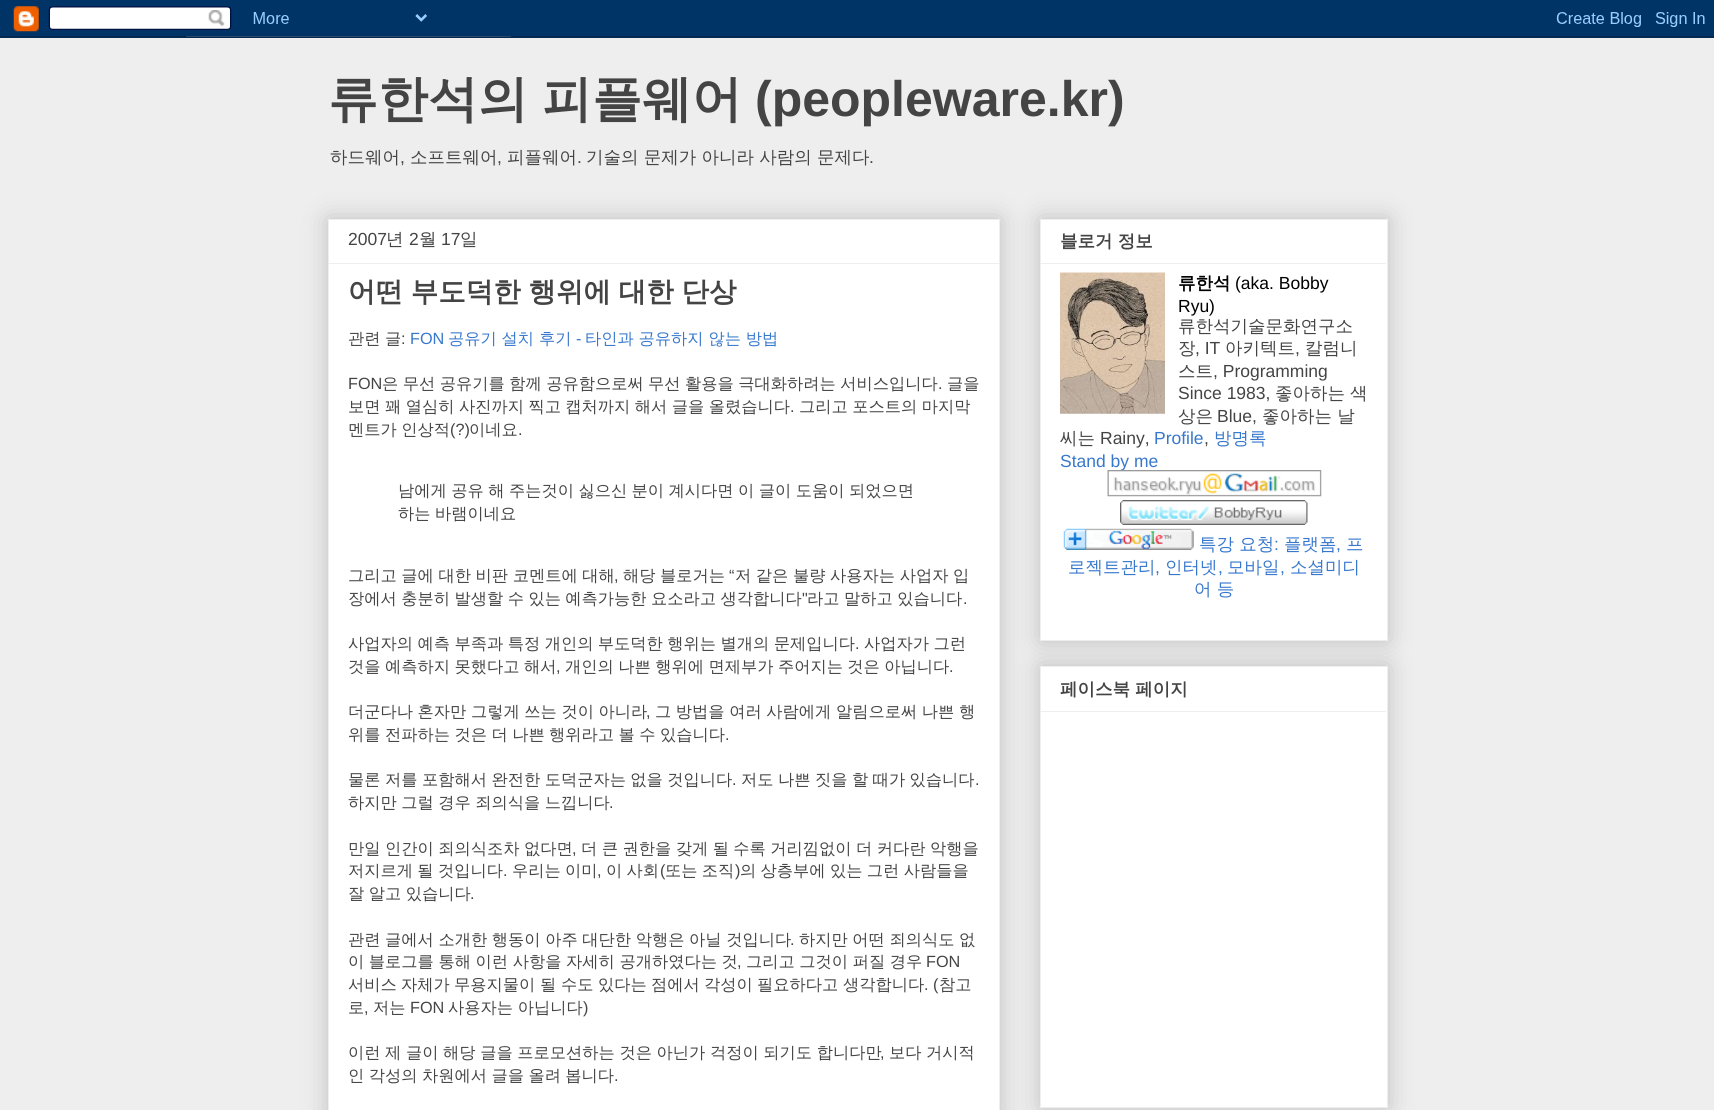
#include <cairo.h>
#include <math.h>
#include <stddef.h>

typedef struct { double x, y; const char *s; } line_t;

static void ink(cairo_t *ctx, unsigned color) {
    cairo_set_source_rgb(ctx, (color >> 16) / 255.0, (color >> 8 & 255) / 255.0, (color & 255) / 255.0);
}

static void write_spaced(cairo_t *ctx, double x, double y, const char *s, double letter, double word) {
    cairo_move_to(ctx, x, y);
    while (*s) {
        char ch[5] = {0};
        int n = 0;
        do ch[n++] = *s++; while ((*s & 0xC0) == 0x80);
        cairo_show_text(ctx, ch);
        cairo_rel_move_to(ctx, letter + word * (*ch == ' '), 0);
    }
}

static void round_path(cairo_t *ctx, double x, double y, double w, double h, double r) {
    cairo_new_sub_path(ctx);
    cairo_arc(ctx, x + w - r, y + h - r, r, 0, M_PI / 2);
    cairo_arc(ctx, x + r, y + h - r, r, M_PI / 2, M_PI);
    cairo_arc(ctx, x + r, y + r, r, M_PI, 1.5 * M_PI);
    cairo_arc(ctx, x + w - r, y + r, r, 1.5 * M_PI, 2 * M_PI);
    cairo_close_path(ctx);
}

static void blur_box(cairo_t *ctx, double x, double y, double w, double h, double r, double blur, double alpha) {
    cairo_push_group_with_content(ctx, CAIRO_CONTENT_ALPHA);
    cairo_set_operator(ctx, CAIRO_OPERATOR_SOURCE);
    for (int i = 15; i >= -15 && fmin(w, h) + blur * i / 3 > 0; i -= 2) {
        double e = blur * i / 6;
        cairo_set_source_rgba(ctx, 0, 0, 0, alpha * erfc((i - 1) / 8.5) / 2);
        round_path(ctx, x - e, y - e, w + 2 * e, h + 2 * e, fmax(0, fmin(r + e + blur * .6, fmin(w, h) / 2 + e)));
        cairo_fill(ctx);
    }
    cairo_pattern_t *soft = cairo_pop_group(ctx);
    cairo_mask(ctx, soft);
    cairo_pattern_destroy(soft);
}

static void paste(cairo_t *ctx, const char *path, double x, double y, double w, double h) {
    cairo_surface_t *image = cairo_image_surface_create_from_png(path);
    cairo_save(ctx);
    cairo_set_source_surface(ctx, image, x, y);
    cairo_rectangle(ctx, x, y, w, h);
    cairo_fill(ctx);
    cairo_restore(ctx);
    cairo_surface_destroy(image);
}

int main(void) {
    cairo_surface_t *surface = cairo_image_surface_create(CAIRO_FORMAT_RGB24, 1714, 1110);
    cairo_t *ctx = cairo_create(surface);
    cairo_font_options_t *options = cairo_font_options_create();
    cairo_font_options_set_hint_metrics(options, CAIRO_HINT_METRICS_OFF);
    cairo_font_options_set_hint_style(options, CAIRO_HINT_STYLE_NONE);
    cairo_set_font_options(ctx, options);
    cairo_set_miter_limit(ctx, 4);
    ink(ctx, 0xEEEEEE);
    cairo_paint(ctx);
    paste(ctx, "media/1.png", 0, 0, 1714, 38);
    cairo_select_font_face(ctx, "WenQuanYi Zen Hei", CAIRO_FONT_SLANT_NORMAL, CAIRO_FONT_WEIGHT_BOLD);
    cairo_set_font_size(ctx, 50);
    ink(ctx, 0x444444);
    write_spaced(ctx, 328, 116, "류한석의 피플웨어", 0, -1);
    cairo_select_font_face(ctx, "Liberation Sans", CAIRO_FONT_SLANT_NORMAL, CAIRO_FONT_WEIGHT_BOLD);
    cairo_move_to(ctx, 755, 116);
    cairo_show_text(ctx, "(peopleware.kr)");
    cairo_select_font_face(ctx, "WenQuanYi Zen Hei Medium", CAIRO_FONT_SLANT_NORMAL, CAIRO_FONT_WEIGHT_NORMAL);
    cairo_set_font_size(ctx, 17.5);
    cairo_move_to(ctx, 330, 163);
    cairo_show_text(ctx, "하드웨어");
    cairo_select_font_face(ctx, "Liberation Sans", CAIRO_FONT_SLANT_NORMAL, CAIRO_FONT_WEIGHT_NORMAL);
    cairo_move_to(ctx, 400, 163);
    cairo_show_text(ctx, ",");
    cairo_select_font_face(ctx, "WenQuanYi Zen Hei Medium", CAIRO_FONT_SLANT_NORMAL, CAIRO_FONT_WEIGHT_NORMAL);
    cairo_move_to(ctx, 410, 163);
    cairo_show_text(ctx, "소프트웨어");
    cairo_select_font_face(ctx, "Liberation Sans", CAIRO_FONT_SLANT_NORMAL, CAIRO_FONT_WEIGHT_NORMAL);
    cairo_move_to(ctx, 497, 163);
    cairo_show_text(ctx, ",");
    cairo_select_font_face(ctx, "WenQuanYi Zen Hei Medium", CAIRO_FONT_SLANT_NORMAL, CAIRO_FONT_WEIGHT_NORMAL);
    cairo_move_to(ctx, 507, 163);
    cairo_show_text(ctx, "피플웨어");
    cairo_select_font_face(ctx, "Liberation Sans", CAIRO_FONT_SLANT_NORMAL, CAIRO_FONT_WEIGHT_NORMAL);
    cairo_move_to(ctx, 577, 163);
    cairo_show_text(ctx, ".");
    cairo_select_font_face(ctx, "WenQuanYi Zen Hei Medium", CAIRO_FONT_SLANT_NORMAL, CAIRO_FONT_WEIGHT_NORMAL);
    cairo_move_to(ctx, 586, 163);
    cairo_show_text(ctx, "기술의 문제가 아니라 사람의 문제다");
    cairo_select_font_face(ctx, "Liberation Sans", CAIRO_FONT_SLANT_NORMAL, CAIRO_FONT_WEIGHT_NORMAL);
    cairo_move_to(ctx, 869, 163);
    cairo_show_text(ctx, ".");
    ink(ctx, 0x000000);
    blur_box(ctx, 328, 219, 672, 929, 0, 12.5, 0.2);
    ink(ctx, 0xFFFFFF);
    cairo_rectangle(ctx, 328.5, 219.5, 671, 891);
    cairo_fill_preserve(ctx);
    ink(ctx, 0xEEEEEE);
    cairo_set_line_width(ctx, 1);
    cairo_stroke(ctx);
    ink(ctx, 0x444444);
    cairo_move_to(ctx, 348, 245);
    cairo_show_text(ctx, "2007");
    cairo_select_font_face(ctx, "WenQuanYi Zen Hei Medium", CAIRO_FONT_SLANT_NORMAL, CAIRO_FONT_WEIGHT_NORMAL);
    cairo_move_to(ctx, 386, 245);
    cairo_show_text(ctx, "년");
    cairo_select_font_face(ctx, "Liberation Sans", CAIRO_FONT_SLANT_NORMAL, CAIRO_FONT_WEIGHT_NORMAL);
    cairo_move_to(ctx, 409, 245);
    cairo_show_text(ctx, "2");
    cairo_select_font_face(ctx, "WenQuanYi Zen Hei Medium", CAIRO_FONT_SLANT_NORMAL, CAIRO_FONT_WEIGHT_NORMAL);
    cairo_move_to(ctx, 419, 245);
    cairo_show_text(ctx, "월");
    cairo_select_font_face(ctx, "Liberation Sans", CAIRO_FONT_SLANT_NORMAL, CAIRO_FONT_WEIGHT_NORMAL);
    cairo_move_to(ctx, 441, 245);
    cairo_show_text(ctx, "17");
    cairo_select_font_face(ctx, "WenQuanYi Zen Hei Medium", CAIRO_FONT_SLANT_NORMAL, CAIRO_FONT_WEIGHT_NORMAL);
    cairo_move_to(ctx, 460, 245);
    cairo_show_text(ctx, "일");
    ink(ctx, 0xEEEEEE);
    cairo_rectangle(ctx, 329, 263, 670, 1);
    cairo_fill(ctx);
    cairo_select_font_face(ctx, "WenQuanYi Zen Hei", CAIRO_FONT_SLANT_NORMAL, CAIRO_FONT_WEIGHT_BOLD);
    cairo_set_font_size(ctx, 27.5);
    ink(ctx, 0x444444);
    write_spaced(ctx, 348, 301, "어떤 부도덕한 행위에 대한 단상", 0, -0.5);
    cairo_select_font_face(ctx, "WenQuanYi Zen Hei Medium", CAIRO_FONT_SLANT_NORMAL, CAIRO_FONT_WEIGHT_NORMAL);
    cairo_set_font_size(ctx, 16.25);
    write_spaced(ctx, 348, 344, "관련 글", 0, -0.4);
    cairo_select_font_face(ctx, "Liberation Sans", CAIRO_FONT_SLANT_NORMAL, CAIRO_FONT_WEIGHT_NORMAL);
    cairo_move_to(ctx, 401, 344);
    cairo_show_text(ctx, ":");
    ink(ctx, 0x3778CD);
    cairo_move_to(ctx, 410, 344);
    cairo_show_text(ctx, "FON");
    cairo_select_font_face(ctx, "WenQuanYi Zen Hei Medium", CAIRO_FONT_SLANT_NORMAL, CAIRO_FONT_WEIGHT_NORMAL);
    cairo_move_to(ctx, 448, 344);
    cairo_show_text(ctx, "공유기 설치 후기");
    cairo_select_font_face(ctx, "Liberation Sans", CAIRO_FONT_SLANT_NORMAL, CAIRO_FONT_WEIGHT_NORMAL);
    cairo_move_to(ctx, 576, 344);
    cairo_show_text(ctx, "-");
    cairo_select_font_face(ctx, "WenQuanYi Zen Hei Medium", CAIRO_FONT_SLANT_NORMAL, CAIRO_FONT_WEIGHT_NORMAL);
    cairo_move_to(ctx, 585, 344);
    cairo_show_text(ctx, "타인과 공유하지 않는 방법");
    cairo_select_font_face(ctx, "Liberation Sans", CAIRO_FONT_SLANT_NORMAL, CAIRO_FONT_WEIGHT_NORMAL);
    ink(ctx, 0x444444);
    cairo_move_to(ctx, 348, 389);
    cairo_show_text(ctx, "FON");
    cairo_select_font_face(ctx, "WenQuanYi Zen Hei Medium", CAIRO_FONT_SLANT_NORMAL, CAIRO_FONT_WEIGHT_NORMAL);
    write_spaced(ctx, 382, 389, "은 무선 공유기를 함께 공유함으로써 무선 활용을 극대화하려는 서비스입니다", 0, -0.4);
    cairo_select_font_face(ctx, "Liberation Sans", CAIRO_FONT_SLANT_NORMAL, CAIRO_FONT_WEIGHT_NORMAL);
    cairo_move_to(ctx, 938, 389);
    cairo_show_text(ctx, ".");
    cairo_select_font_face(ctx, "WenQuanYi Zen Hei Medium", CAIRO_FONT_SLANT_NORMAL, CAIRO_FONT_WEIGHT_NORMAL);
    cairo_move_to(ctx, 947, 389);
    cairo_show_text(ctx, "글을");
    write_spaced(ctx, 348, 412, "보면 꽤 열심히 사진까지 찍고 캡처까지 해서 글을 올렸습니다", 0, -0.4);
    cairo_select_font_face(ctx, "Liberation Sans", CAIRO_FONT_SLANT_NORMAL, CAIRO_FONT_WEIGHT_NORMAL);
    cairo_move_to(ctx, 790, 412);
    cairo_show_text(ctx, ".");
    cairo_select_font_face(ctx, "WenQuanYi Zen Hei Medium", CAIRO_FONT_SLANT_NORMAL, CAIRO_FONT_WEIGHT_NORMAL);
    write_spaced(ctx, 799, 412, "그리고 포스트의 마지막", 0, -0.4);
    write_spaced(ctx, 348, 435, "멘트가 인상적", 0, -0.4);
    cairo_select_font_face(ctx, "Liberation Sans", CAIRO_FONT_SLANT_NORMAL, CAIRO_FONT_WEIGHT_NORMAL);
    cairo_move_to(ctx, 450, 435);
    cairo_show_text(ctx, "(?)");
    cairo_select_font_face(ctx, "WenQuanYi Zen Hei Medium", CAIRO_FONT_SLANT_NORMAL, CAIRO_FONT_WEIGHT_NORMAL);
    cairo_move_to(ctx, 469, 435);
    cairo_show_text(ctx, "이네요");
    cairo_select_font_face(ctx, "Liberation Sans", CAIRO_FONT_SLANT_NORMAL, CAIRO_FONT_WEIGHT_NORMAL);
    cairo_move_to(ctx, 518, 435);
    cairo_show_text(ctx, ".");
    cairo_select_font_face(ctx, "WenQuanYi Zen Hei Medium", CAIRO_FONT_SLANT_NORMAL, CAIRO_FONT_WEIGHT_NORMAL);
    write_spaced(ctx, 398, 496, "남에게 공유 해 주는것이 싫으신 분이 계시다면 이 글이 도움이 되었으면", 0, -0.4);
    write_spaced(ctx, 398, 519, "하는 바램이네요", 0, -0.4);
    write_spaced(ctx, 348, 581, "그리고 글에 대한 비판 코멘트에 대해", 0, -0.25);
    write_spaced(ctx, 623, 581, "해당 블로거는", 0, -0.25);
    cairo_select_font_face(ctx, "Liberation Sans", CAIRO_FONT_SLANT_NORMAL, CAIRO_FONT_WEIGHT_NORMAL);
    cairo_move_to(ctx, 729, 581);
    cairo_show_text(ctx, "“");
    cairo_select_font_face(ctx, "WenQuanYi Zen Hei Medium", CAIRO_FONT_SLANT_NORMAL, CAIRO_FONT_WEIGHT_NORMAL);
    write_spaced(ctx, 735, 581, "저 같은 불량 사용자는 사업자 입", 0, -0.25);
    cairo_select_font_face(ctx, "Liberation Sans", CAIRO_FONT_SLANT_NORMAL, CAIRO_FONT_WEIGHT_NORMAL);
    cairo_move_to(ctx, 614, 581);
    cairo_show_text(ctx, ",");
    cairo_select_font_face(ctx, "WenQuanYi Zen Hei Medium", CAIRO_FONT_SLANT_NORMAL, CAIRO_FONT_WEIGHT_NORMAL);
    write_spaced(ctx, 348, 604, "장에서 충분히 발생할 수 있는 예측가능한 요소라고 생각합니다", 0, -0.4);
    cairo_select_font_face(ctx, "Liberation Sans", CAIRO_FONT_SLANT_NORMAL, CAIRO_FONT_WEIGHT_NORMAL);
    cairo_move_to(ctx, 802, 604);
    cairo_show_text(ctx, "\"");
    cairo_select_font_face(ctx, "WenQuanYi Zen Hei Medium", CAIRO_FONT_SLANT_NORMAL, CAIRO_FONT_WEIGHT_NORMAL);
    write_spaced(ctx, 807, 604, "라고 말하고 있습니다", 0, -0.4);
    cairo_select_font_face(ctx, "Liberation Sans", CAIRO_FONT_SLANT_NORMAL, CAIRO_FONT_WEIGHT_NORMAL);
    cairo_move_to(ctx, 963, 604);
    cairo_show_text(ctx, ".");
    cairo_select_font_face(ctx, "WenQuanYi Zen Hei Medium", CAIRO_FONT_SLANT_NORMAL, CAIRO_FONT_WEIGHT_NORMAL);
    write_spaced(ctx, 348, 649, "사업자의 예측 부족과 특정 개인의 부도덕한 행위는 별개의 문제입니다", 0, -0.4);
    cairo_select_font_face(ctx, "Liberation Sans", CAIRO_FONT_SLANT_NORMAL, CAIRO_FONT_WEIGHT_NORMAL);
    cairo_move_to(ctx, 855, 649);
    cairo_show_text(ctx, ".");
    cairo_select_font_face(ctx, "WenQuanYi Zen Hei Medium", CAIRO_FONT_SLANT_NORMAL, CAIRO_FONT_WEIGHT_NORMAL);
    write_spaced(ctx, 864, 649, "사업자가 그런", 0, -0.4);
    write_spaced(ctx, 348, 672, "것을 예측하지 못했다고 해서", 0, -0.4);
    cairo_select_font_face(ctx, "Liberation Sans", CAIRO_FONT_SLANT_NORMAL, CAIRO_FONT_WEIGHT_NORMAL);
    cairo_move_to(ctx, 556, 672);
    cairo_show_text(ctx, ",");
    cairo_select_font_face(ctx, "WenQuanYi Zen Hei Medium", CAIRO_FONT_SLANT_NORMAL, CAIRO_FONT_WEIGHT_NORMAL);
    write_spaced(ctx, 565, 672, "개인의 나쁜 행위에 면제부가 주어지는 것은 아닙니다", 0, -0.4);
    cairo_select_font_face(ctx, "Liberation Sans", CAIRO_FONT_SLANT_NORMAL, CAIRO_FONT_WEIGHT_NORMAL);
    cairo_move_to(ctx, 949, 672);
    cairo_show_text(ctx, ".");
    cairo_select_font_face(ctx, "WenQuanYi Zen Hei Medium", CAIRO_FONT_SLANT_NORMAL, CAIRO_FONT_WEIGHT_NORMAL);
    write_spaced(ctx, 348, 717, "더군다나 혼자만 그렇게 쓰는 것이 아니라", 0, -0.25);
    cairo_select_font_face(ctx, "Liberation Sans", CAIRO_FONT_SLANT_NORMAL, CAIRO_FONT_WEIGHT_NORMAL);
    cairo_move_to(ctx, 646, 717);
    cairo_show_text(ctx, ",");
    cairo_select_font_face(ctx, "WenQuanYi Zen Hei Medium", CAIRO_FONT_SLANT_NORMAL, CAIRO_FONT_WEIGHT_NORMAL);
    write_spaced(ctx, 655, 717, "그 방법을 여러 사람에게 알림으로써 나쁜 행", 0, -0.25);
    write_spaced(ctx, 348, 740, "위를 전파하는 것은 더 나쁜 행위라고 볼 수 있습니다", 0, -0.4);
    cairo_select_font_face(ctx, "Liberation Sans", CAIRO_FONT_SLANT_NORMAL, CAIRO_FONT_WEIGHT_NORMAL);
    cairo_move_to(ctx, 725, 740);
    cairo_show_text(ctx, ".");
    cairo_select_font_face(ctx, "WenQuanYi Zen Hei Medium", CAIRO_FONT_SLANT_NORMAL, CAIRO_FONT_WEIGHT_NORMAL);
    write_spaced(ctx, 348, 785, "물론 저를 포함해서 완전한 도덕군자는 없을 것입니다", 0, -0.4);
    cairo_select_font_face(ctx, "Liberation Sans", CAIRO_FONT_SLANT_NORMAL, CAIRO_FONT_WEIGHT_NORMAL);
    cairo_move_to(ctx, 732, 785);
    cairo_show_text(ctx, ".");
    cairo_select_font_face(ctx, "WenQuanYi Zen Hei Medium", CAIRO_FONT_SLANT_NORMAL, CAIRO_FONT_WEIGHT_NORMAL);
    write_spaced(ctx, 741, 785, "저도 나쁜 짓을 할 때가 있습니다", 0, -0.4);
    cairo_select_font_face(ctx, "Liberation Sans", CAIRO_FONT_SLANT_NORMAL, CAIRO_FONT_WEIGHT_NORMAL);
    cairo_move_to(ctx, 975, 785);
    cairo_show_text(ctx, ".");
    cairo_select_font_face(ctx, "WenQuanYi Zen Hei Medium", CAIRO_FONT_SLANT_NORMAL, CAIRO_FONT_WEIGHT_NORMAL);
    write_spaced(ctx, 348, 808, "하지만 그럴 경우 죄의식을 느낍니다", 0, -0.4);
    cairo_select_font_face(ctx, "Liberation Sans", CAIRO_FONT_SLANT_NORMAL, CAIRO_FONT_WEIGHT_NORMAL);
    cairo_move_to(ctx, 609, 808);
    cairo_show_text(ctx, ".");
    cairo_select_font_face(ctx, "WenQuanYi Zen Hei Medium", CAIRO_FONT_SLANT_NORMAL, CAIRO_FONT_WEIGHT_NORMAL);
    write_spaced(ctx, 348, 854, "만일 인간이 죄의식조차 없다면", 0, -0.4);
    cairo_select_font_face(ctx, "Liberation Sans", CAIRO_FONT_SLANT_NORMAL, CAIRO_FONT_WEIGHT_NORMAL);
    cairo_move_to(ctx, 572, 854);
    cairo_show_text(ctx, ",");
    cairo_select_font_face(ctx, "WenQuanYi Zen Hei Medium", CAIRO_FONT_SLANT_NORMAL, CAIRO_FONT_WEIGHT_NORMAL);
    write_spaced(ctx, 581, 854, "더 큰 권한을 갖게 될 수록 거리낌없이 더 커다란 악행을", 0, -0.4);
    write_spaced(ctx, 348, 876, "저지르게 될 것입니다", 0, -0.5);
    cairo_select_font_face(ctx, "Liberation Sans", CAIRO_FONT_SLANT_NORMAL, CAIRO_FONT_WEIGHT_NORMAL);
    cairo_move_to(ctx, 503, 876);
    cairo_show_text(ctx, ".");
    cairo_select_font_face(ctx, "WenQuanYi Zen Hei Medium", CAIRO_FONT_SLANT_NORMAL, CAIRO_FONT_WEIGHT_NORMAL);
    write_spaced(ctx, 512, 876, "우리는 이미", 0, -0.5);
    cairo_select_font_face(ctx, "Liberation Sans", CAIRO_FONT_SLANT_NORMAL, CAIRO_FONT_WEIGHT_NORMAL);
    cairo_move_to(ctx, 597, 876);
    cairo_show_text(ctx, ",");
    cairo_select_font_face(ctx, "WenQuanYi Zen Hei Medium", CAIRO_FONT_SLANT_NORMAL, CAIRO_FONT_WEIGHT_NORMAL);
    write_spaced(ctx, 606, 876, "이 사회", 0, -0.5);
    cairo_select_font_face(ctx, "Liberation Sans", CAIRO_FONT_SLANT_NORMAL, CAIRO_FONT_WEIGHT_NORMAL);
    cairo_move_to(ctx, 660, 876);
    cairo_show_text(ctx, "(");
    cairo_select_font_face(ctx, "WenQuanYi Zen Hei Medium", CAIRO_FONT_SLANT_NORMAL, CAIRO_FONT_WEIGHT_NORMAL);
    write_spaced(ctx, 665, 876, "또는 조직", 0, -0.5);
    cairo_select_font_face(ctx, "Liberation Sans", CAIRO_FONT_SLANT_NORMAL, CAIRO_FONT_WEIGHT_NORMAL);
    cairo_move_to(ctx, 735, 876);
    cairo_show_text(ctx, ")");
    cairo_select_font_face(ctx, "WenQuanYi Zen Hei Medium", CAIRO_FONT_SLANT_NORMAL, CAIRO_FONT_WEIGHT_NORMAL);
    write_spaced(ctx, 740, 876, "의 상층부에 있는 그런 사람들을", 0, -0.5);
    write_spaced(ctx, 348, 899, "잘 알고 있습니다", 0, -0.4);
    cairo_select_font_face(ctx, "Liberation Sans", CAIRO_FONT_SLANT_NORMAL, CAIRO_FONT_WEIGHT_NORMAL);
    cairo_move_to(ctx, 470, 899);
    cairo_show_text(ctx, ".");
    cairo_select_font_face(ctx, "WenQuanYi Zen Hei Medium", CAIRO_FONT_SLANT_NORMAL, CAIRO_FONT_WEIGHT_NORMAL);
    write_spaced(ctx, 348, 945, "관련 글에서 소개한 행동이 아주 대단한 악행은 아닐 것입니다", 0, -0.25);
    cairo_select_font_face(ctx, "Liberation Sans", CAIRO_FONT_SLANT_NORMAL, CAIRO_FONT_WEIGHT_NORMAL);
    cairo_move_to(ctx, 790, 945);
    cairo_show_text(ctx, ".");
    cairo_select_font_face(ctx, "WenQuanYi Zen Hei Medium", CAIRO_FONT_SLANT_NORMAL, CAIRO_FONT_WEIGHT_NORMAL);
    write_spaced(ctx, 799, 945, "하지만 어떤 죄의식도 없", 0, -0.25);
    write_spaced(ctx, 348, 967, "이 블로그를 통해 이런 사항을 자세히 공개하였다는 것", 0, -0.25);
    cairo_select_font_face(ctx, "Liberation Sans", CAIRO_FONT_SLANT_NORMAL, CAIRO_FONT_WEIGHT_NORMAL);
    cairo_move_to(ctx, 737, 967);
    cairo_show_text(ctx, ",");
    cairo_select_font_face(ctx, "WenQuanYi Zen Hei Medium", CAIRO_FONT_SLANT_NORMAL, CAIRO_FONT_WEIGHT_NORMAL);
    write_spaced(ctx, 746, 967, "그리고 그것이 퍼질 경우", 0, -0.25);
    cairo_select_font_face(ctx, "Liberation Sans", CAIRO_FONT_SLANT_NORMAL, CAIRO_FONT_WEIGHT_NORMAL);
    cairo_move_to(ctx, 926, 967);
    cairo_show_text(ctx, "FON");
    cairo_select_font_face(ctx, "WenQuanYi Zen Hei Medium", CAIRO_FONT_SLANT_NORMAL, CAIRO_FONT_WEIGHT_NORMAL);
    {
        static const line_t items[] = {
            {348, 990, "서비스"},
            {401, 990, "자체가"},
            {454, 990, "무용지물이"},
            {540, 990, "될"},
            {561, 990, "수도"},
            {598, 990, "있다는"},
            {651, 990, "점에서"},
            {704, 990, "각성이"},
            {757, 990, "필요하다고"},
            {843, 990, "생각합니다"},
        };
        for (size_t i = 0; i < sizeof items / sizeof *items; i++) {
            cairo_move_to(ctx, items[i].x, items[i].y);
            cairo_show_text(ctx, items[i].s);
        }
    }
    cairo_select_font_face(ctx, "Liberation Sans", CAIRO_FONT_SLANT_NORMAL, CAIRO_FONT_WEIGHT_NORMAL);
    cairo_move_to(ctx, 924, 990);
    cairo_show_text(ctx, ". (");
    cairo_select_font_face(ctx, "WenQuanYi Zen Hei Medium", CAIRO_FONT_SLANT_NORMAL, CAIRO_FONT_WEIGHT_NORMAL);
    cairo_move_to(ctx, 939, 990);
    cairo_show_text(ctx, "참고");
    cairo_move_to(ctx, 348, 1013);
    cairo_show_text(ctx, "로");
    cairo_select_font_face(ctx, "Liberation Sans", CAIRO_FONT_SLANT_NORMAL, CAIRO_FONT_WEIGHT_NORMAL);
    cairo_move_to(ctx, 364, 1013);
    cairo_show_text(ctx, ",");
    cairo_select_font_face(ctx, "WenQuanYi Zen Hei Medium", CAIRO_FONT_SLANT_NORMAL, CAIRO_FONT_WEIGHT_NORMAL);
    cairo_move_to(ctx, 373, 1013);
    cairo_show_text(ctx, "저는");
    cairo_select_font_face(ctx, "Liberation Sans", CAIRO_FONT_SLANT_NORMAL, CAIRO_FONT_WEIGHT_NORMAL);
    cairo_move_to(ctx, 410, 1013);
    cairo_show_text(ctx, "FON");
    cairo_select_font_face(ctx, "WenQuanYi Zen Hei Medium", CAIRO_FONT_SLANT_NORMAL, CAIRO_FONT_WEIGHT_NORMAL);
    cairo_move_to(ctx, 448, 1013);
    cairo_show_text(ctx, "사용자는 아닙니다");
    cairo_select_font_face(ctx, "Liberation Sans", CAIRO_FONT_SLANT_NORMAL, CAIRO_FONT_WEIGHT_NORMAL);
    cairo_move_to(ctx, 583, 1013);
    cairo_show_text(ctx, ")");
    cairo_select_font_face(ctx, "WenQuanYi Zen Hei Medium", CAIRO_FONT_SLANT_NORMAL, CAIRO_FONT_WEIGHT_NORMAL);
    write_spaced(ctx, 348, 1058, "이런 제 글이 해당 글을 프로모션하는 것은 아닌가 걱정이 되기도 합니다만", 0, -0.25);
    cairo_select_font_face(ctx, "Liberation Sans", CAIRO_FONT_SLANT_NORMAL, CAIRO_FONT_WEIGHT_NORMAL);
    cairo_move_to(ctx, 880, 1058);
    cairo_show_text(ctx, ",");
    cairo_select_font_face(ctx, "WenQuanYi Zen Hei Medium", CAIRO_FONT_SLANT_NORMAL, CAIRO_FONT_WEIGHT_NORMAL);
    write_spaced(ctx, 889, 1058, "보다 거시적", 0, -0.25);
    write_spaced(ctx, 348, 1081, "인 각성의 차원에서 글을 올려 봅니다", 0, -0.4);
    cairo_select_font_face(ctx, "Liberation Sans", CAIRO_FONT_SLANT_NORMAL, CAIRO_FONT_WEIGHT_NORMAL);
    cairo_move_to(ctx, 614, 1081);
    cairo_show_text(ctx, ".");
    ink(ctx, 0x000000);
    blur_box(ctx, 1040, 219, 348, 422, 0, 12.5, 0.2);
    ink(ctx, 0xFFFFFF);
    cairo_rectangle(ctx, 1040.5, 219.5, 347, 421);
    cairo_fill_preserve(ctx);
    ink(ctx, 0xEEEEEE);
    cairo_stroke(ctx);
    cairo_select_font_face(ctx, "WenQuanYi Zen Hei", CAIRO_FONT_SLANT_NORMAL, CAIRO_FONT_WEIGHT_BOLD);
    cairo_set_font_size(ctx, 17.5);
    ink(ctx, 0x444444);
    cairo_move_to(ctx, 1060, 247);
    cairo_show_text(ctx, "블로거 정보");
    ink(ctx, 0xEEEEEE);
    cairo_rectangle(ctx, 1041, 263, 345, 1);
    cairo_fill(ctx);
    paste(ctx, "media/2.png", 1060, 272, 105, 142);
    ink(ctx, 0x000000);
    cairo_move_to(ctx, 1178, 289);
    cairo_show_text(ctx, "류한석");
    cairo_select_font_face(ctx, "Liberation Sans", CAIRO_FONT_SLANT_NORMAL, CAIRO_FONT_WEIGHT_NORMAL);
    cairo_move_to(ctx, 1235, 289);
    cairo_show_text(ctx, "(aka. Bobby");
    cairo_move_to(ctx, 1178, 312);
    cairo_show_text(ctx, "Ryu)");
    cairo_select_font_face(ctx, "WenQuanYi Zen Hei Medium", CAIRO_FONT_SLANT_NORMAL, CAIRO_FONT_WEIGHT_NORMAL);
    ink(ctx, 0x444444);
    cairo_move_to(ctx, 1178, 332);
    cairo_show_text(ctx, "류한석기술문화연구소");
    cairo_move_to(ctx, 1178, 354);
    cairo_show_text(ctx, "장");
    cairo_select_font_face(ctx, "Liberation Sans", CAIRO_FONT_SLANT_NORMAL, CAIRO_FONT_WEIGHT_NORMAL);
    cairo_move_to(ctx, 1195, 354);
    cairo_show_text(ctx, ", IT");
    cairo_select_font_face(ctx, "WenQuanYi Zen Hei Medium", CAIRO_FONT_SLANT_NORMAL, CAIRO_FONT_WEIGHT_NORMAL);
    cairo_move_to(ctx, 1225, 354);
    cairo_show_text(ctx, "아키텍트");
    cairo_select_font_face(ctx, "Liberation Sans", CAIRO_FONT_SLANT_NORMAL, CAIRO_FONT_WEIGHT_NORMAL);
    cairo_move_to(ctx, 1295, 354);
    cairo_show_text(ctx, ",");
    cairo_select_font_face(ctx, "WenQuanYi Zen Hei Medium", CAIRO_FONT_SLANT_NORMAL, CAIRO_FONT_WEIGHT_NORMAL);
    cairo_move_to(ctx, 1305, 354);
    cairo_show_text(ctx, "칼럼니");
    cairo_move_to(ctx, 1178, 377);
    cairo_show_text(ctx, "스트");
    cairo_select_font_face(ctx, "Liberation Sans", CAIRO_FONT_SLANT_NORMAL, CAIRO_FONT_WEIGHT_NORMAL);
    cairo_move_to(ctx, 1213, 377);
    cairo_show_text(ctx, ", Programming");
    cairo_move_to(ctx, 1178, 399);
    cairo_show_text(ctx, "Since 1983,");
    cairo_select_font_face(ctx, "WenQuanYi Zen Hei Medium", CAIRO_FONT_SLANT_NORMAL, CAIRO_FONT_WEIGHT_NORMAL);
    {
        static const line_t items[] = {
            {1275, 399, "좋아하는"},
            {1350, 399, "색"},
            {1178, 422, "상은"},
        };
        for (size_t i = 0; i < sizeof items / sizeof *items; i++) {
            cairo_move_to(ctx, items[i].x, items[i].y);
            cairo_show_text(ctx, items[i].s);
        }
    }
    cairo_select_font_face(ctx, "Liberation Sans", CAIRO_FONT_SLANT_NORMAL, CAIRO_FONT_WEIGHT_NORMAL);
    cairo_move_to(ctx, 1217, 422);
    cairo_show_text(ctx, "Blue,");
    cairo_select_font_face(ctx, "WenQuanYi Zen Hei Medium", CAIRO_FONT_SLANT_NORMAL, CAIRO_FONT_WEIGHT_NORMAL);
    cairo_move_to(ctx, 1262, 422);
    cairo_show_text(ctx, "좋아하는 날");
    cairo_move_to(ctx, 1060, 444);
    cairo_show_text(ctx, "씨는");
    cairo_select_font_face(ctx, "Liberation Sans", CAIRO_FONT_SLANT_NORMAL, CAIRO_FONT_WEIGHT_NORMAL);
    cairo_move_to(ctx, 1100, 444);
    cairo_show_text(ctx, "Rainy,");
    ink(ctx, 0x3778CD);
    cairo_move_to(ctx, 1154, 444);
    cairo_show_text(ctx, "Profile");
    ink(ctx, 0x444444);
    cairo_move_to(ctx, 1204, 444);
    cairo_show_text(ctx, ",");
    cairo_select_font_face(ctx, "WenQuanYi Zen Hei Medium", CAIRO_FONT_SLANT_NORMAL, CAIRO_FONT_WEIGHT_NORMAL);
    ink(ctx, 0x3778CD);
    cairo_move_to(ctx, 1214, 444);
    cairo_show_text(ctx, "방명록");
    cairo_select_font_face(ctx, "Liberation Sans", CAIRO_FONT_SLANT_NORMAL, CAIRO_FONT_WEIGHT_NORMAL);
    cairo_move_to(ctx, 1060, 467);
    cairo_show_text(ctx, "Stand by me");
    paste(ctx, "media/3.png", 1107, 470, 215, 27);
    paste(ctx, "media/4.png", 1120, 500, 188, 25);
    paste(ctx, "media/5.png", 1063, 528, 131, 22);
    cairo_select_font_face(ctx, "WenQuanYi Zen Hei Medium", CAIRO_FONT_SLANT_NORMAL, CAIRO_FONT_WEIGHT_NORMAL);
    cairo_move_to(ctx, 1199, 550);
    cairo_show_text(ctx, "특강 요청");
    cairo_select_font_face(ctx, "Liberation Sans", CAIRO_FONT_SLANT_NORMAL, CAIRO_FONT_WEIGHT_NORMAL);
    cairo_move_to(ctx, 1274, 550);
    cairo_show_text(ctx, ":");
    cairo_select_font_face(ctx, "WenQuanYi Zen Hei Medium", CAIRO_FONT_SLANT_NORMAL, CAIRO_FONT_WEIGHT_NORMAL);
    cairo_move_to(ctx, 1284, 550);
    cairo_show_text(ctx, "플랫폼");
    cairo_move_to(ctx, 1346, 550);
    cairo_show_text(ctx, "프");
    cairo_select_font_face(ctx, "Liberation Sans", CAIRO_FONT_SLANT_NORMAL, CAIRO_FONT_WEIGHT_NORMAL);
    cairo_move_to(ctx, 1336, 550);
    cairo_show_text(ctx, ",");
    cairo_select_font_face(ctx, "WenQuanYi Zen Hei Medium", CAIRO_FONT_SLANT_NORMAL, CAIRO_FONT_WEIGHT_NORMAL);
    cairo_move_to(ctx, 1068, 573);
    cairo_show_text(ctx, "로젝트관리");
    cairo_select_font_face(ctx, "Liberation Sans", CAIRO_FONT_SLANT_NORMAL, CAIRO_FONT_WEIGHT_NORMAL);
    cairo_move_to(ctx, 1155, 573);
    cairo_show_text(ctx, ",");
    cairo_select_font_face(ctx, "WenQuanYi Zen Hei Medium", CAIRO_FONT_SLANT_NORMAL, CAIRO_FONT_WEIGHT_NORMAL);
    cairo_move_to(ctx, 1165, 573);
    cairo_show_text(ctx, "인터넷");
    cairo_select_font_face(ctx, "Liberation Sans", CAIRO_FONT_SLANT_NORMAL, CAIRO_FONT_WEIGHT_NORMAL);
    cairo_move_to(ctx, 1218, 573);
    cairo_show_text(ctx, ",");
    cairo_select_font_face(ctx, "WenQuanYi Zen Hei Medium", CAIRO_FONT_SLANT_NORMAL, CAIRO_FONT_WEIGHT_NORMAL);
    cairo_move_to(ctx, 1227, 573);
    cairo_show_text(ctx, "모바일");
    cairo_select_font_face(ctx, "Liberation Sans", CAIRO_FONT_SLANT_NORMAL, CAIRO_FONT_WEIGHT_NORMAL);
    cairo_move_to(ctx, 1280, 573);
    cairo_show_text(ctx, ",");
    cairo_select_font_face(ctx, "WenQuanYi Zen Hei Medium", CAIRO_FONT_SLANT_NORMAL, CAIRO_FONT_WEIGHT_NORMAL);
    cairo_move_to(ctx, 1290, 573);
    cairo_show_text(ctx, "소셜미디");
    cairo_move_to(ctx, 1194, 595);
    cairo_show_text(ctx, "어 등");
    ink(ctx, 0x000000);
    blur_box(ctx, 1040, 666, 348, 442, 0, 12.5, 0.2);
    ink(ctx, 0xFFFFFF);
    cairo_rectangle(ctx, 1040.5, 666.5, 347, 441);
    cairo_fill_preserve(ctx);
    ink(ctx, 0xEEEEEE);
    cairo_stroke(ctx);
    cairo_select_font_face(ctx, "WenQuanYi Zen Hei", CAIRO_FONT_SLANT_NORMAL, CAIRO_FONT_WEIGHT_BOLD);
    ink(ctx, 0x444444);
    cairo_move_to(ctx, 1060, 695);
    cairo_show_text(ctx, "페이스북 페이지");
    ink(ctx, 0xEEEEEE);
    cairo_rectangle(ctx, 1041, 711, 345, 1);
    cairo_fill(ctx);
    cairo_surface_write_to_png(surface, "image.png");
    cairo_font_options_destroy(options);
    cairo_destroy(ctx);
    cairo_surface_destroy(surface);
    return 0;
}
